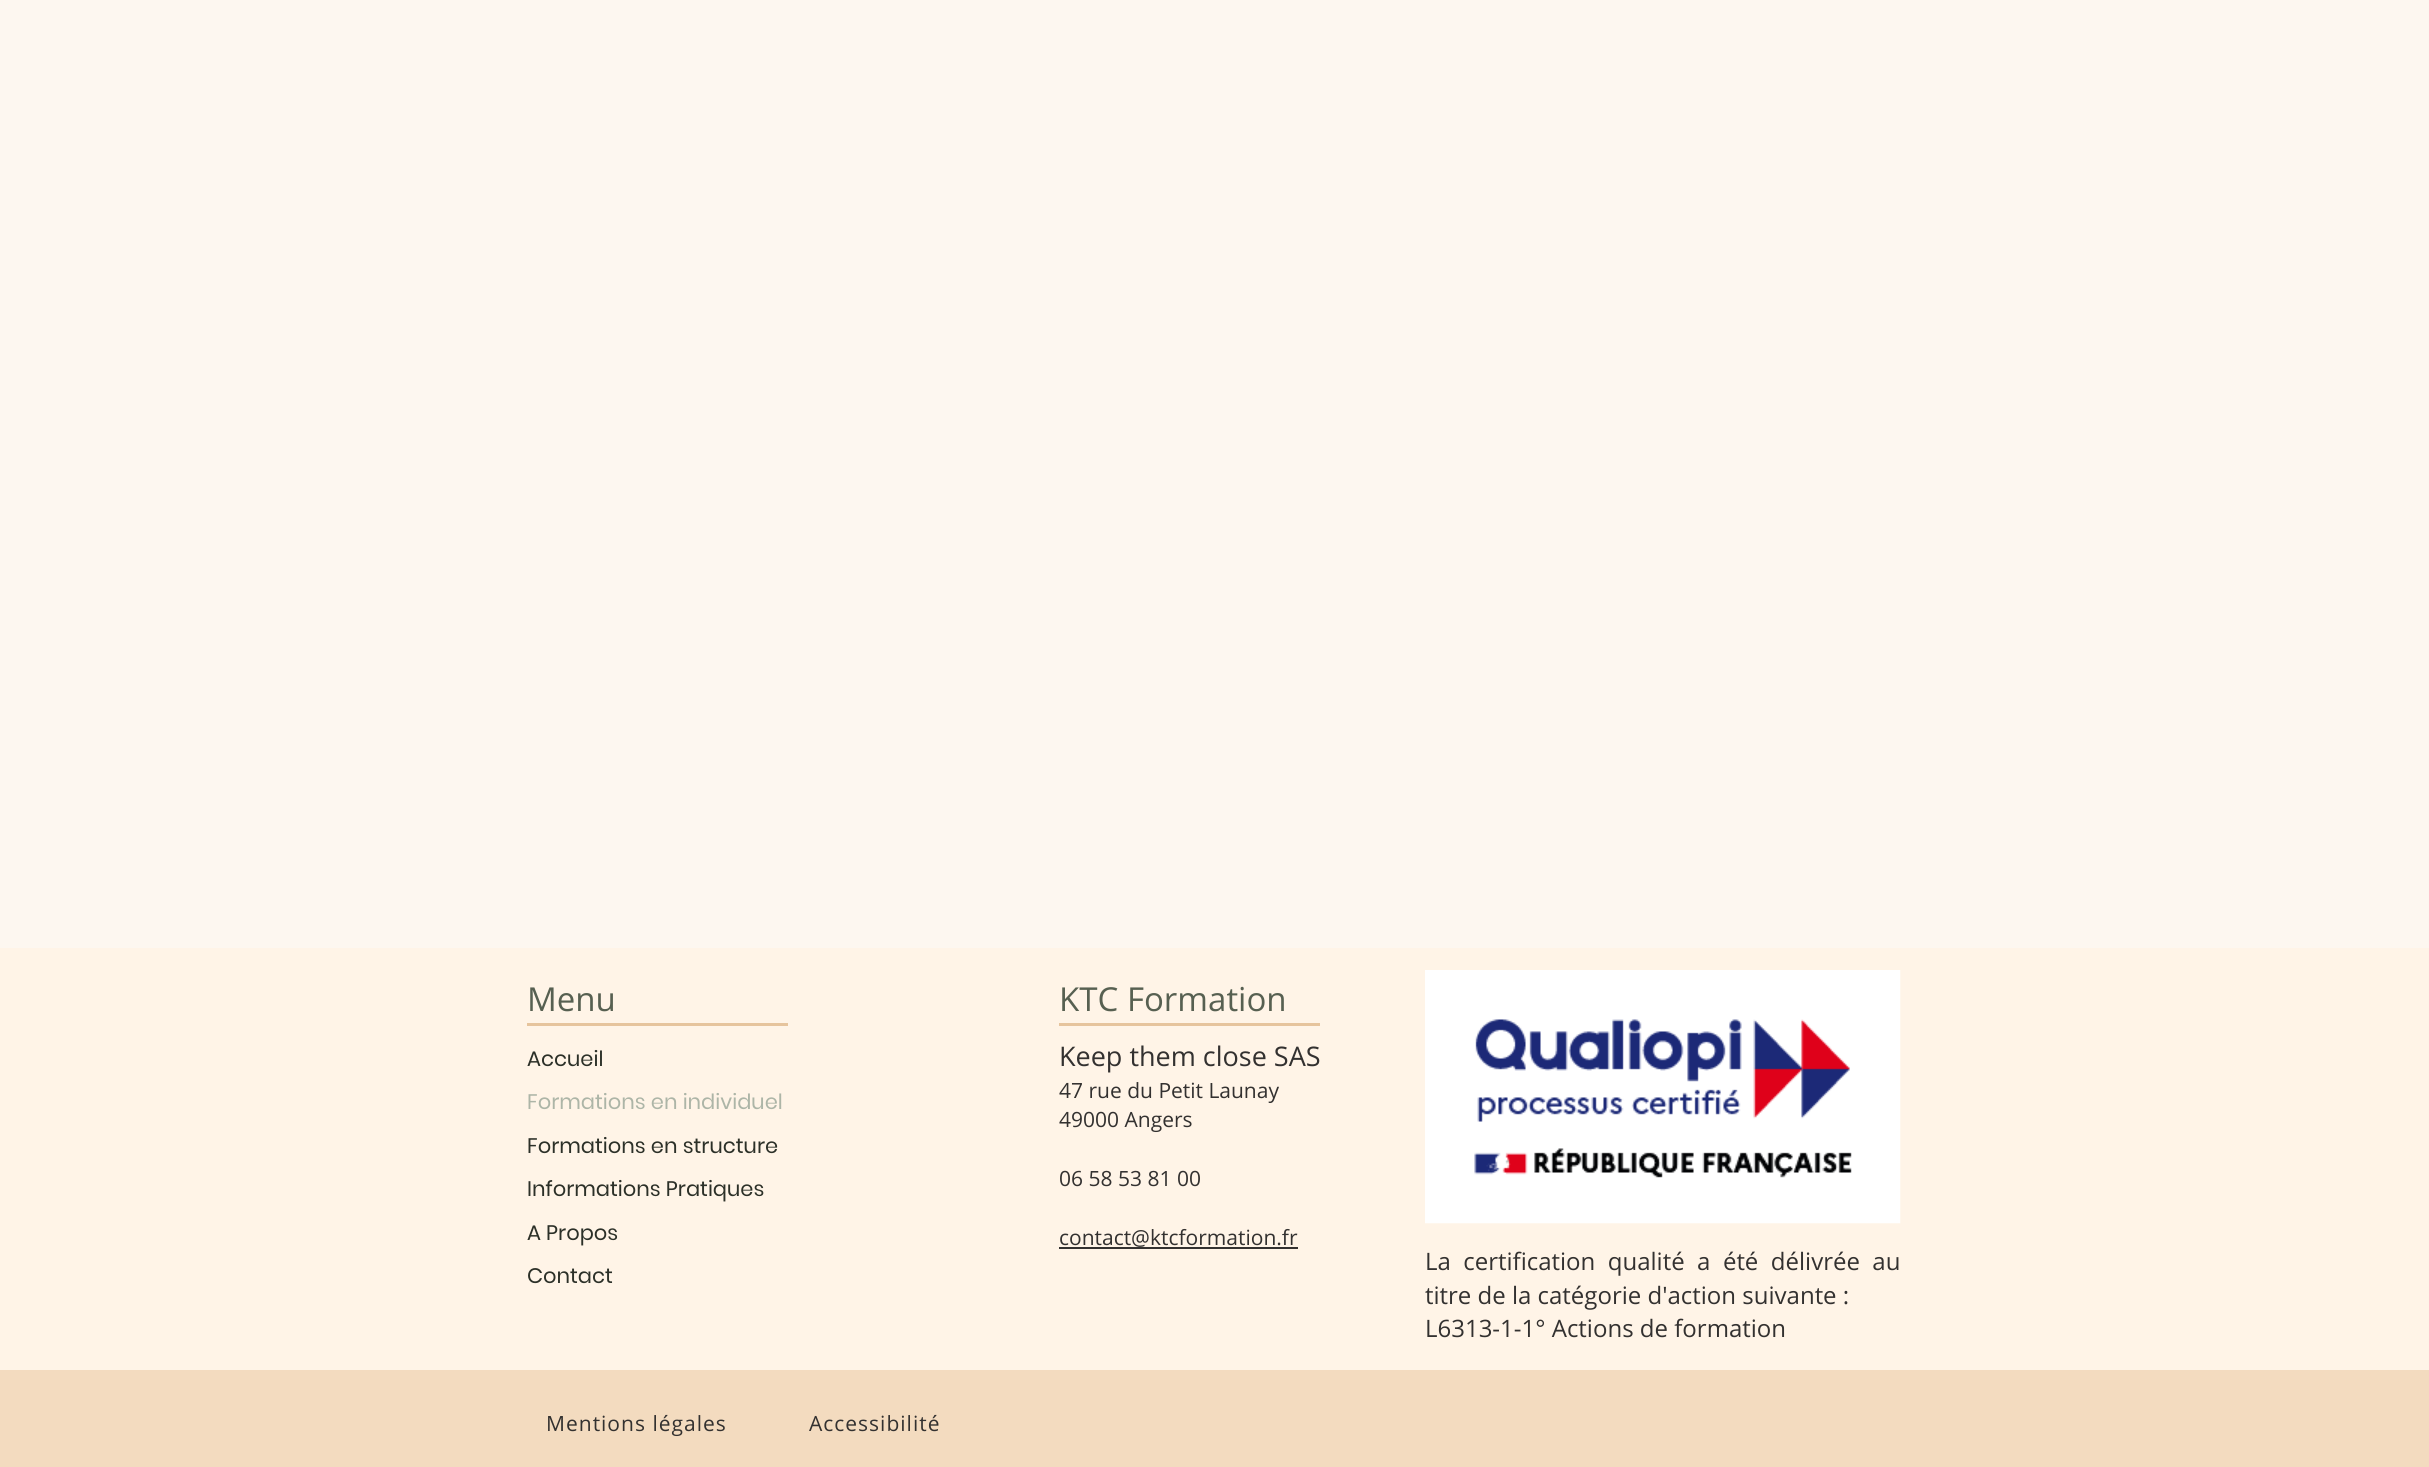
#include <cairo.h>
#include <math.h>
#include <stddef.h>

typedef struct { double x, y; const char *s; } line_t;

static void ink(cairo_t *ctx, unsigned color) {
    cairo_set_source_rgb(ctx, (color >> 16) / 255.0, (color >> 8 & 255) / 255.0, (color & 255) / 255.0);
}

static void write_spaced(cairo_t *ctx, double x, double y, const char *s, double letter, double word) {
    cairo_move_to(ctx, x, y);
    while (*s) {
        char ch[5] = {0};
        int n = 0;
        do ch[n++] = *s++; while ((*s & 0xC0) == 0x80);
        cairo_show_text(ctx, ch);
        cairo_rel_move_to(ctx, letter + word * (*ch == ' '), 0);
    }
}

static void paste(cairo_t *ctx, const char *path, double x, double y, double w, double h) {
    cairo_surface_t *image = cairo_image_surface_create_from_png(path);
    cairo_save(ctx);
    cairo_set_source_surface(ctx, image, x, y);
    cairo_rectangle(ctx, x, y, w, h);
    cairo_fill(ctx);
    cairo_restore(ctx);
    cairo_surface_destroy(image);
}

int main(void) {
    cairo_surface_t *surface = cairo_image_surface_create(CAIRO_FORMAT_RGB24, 2429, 1467);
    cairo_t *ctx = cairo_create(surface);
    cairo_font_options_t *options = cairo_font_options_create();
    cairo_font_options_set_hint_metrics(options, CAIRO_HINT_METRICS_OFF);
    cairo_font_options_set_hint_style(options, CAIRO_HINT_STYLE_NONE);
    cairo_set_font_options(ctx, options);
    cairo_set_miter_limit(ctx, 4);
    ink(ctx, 0xFDF7F0);
    cairo_paint(ctx);
    ink(ctx, 0xFFF4E7);
    cairo_rectangle(ctx, 0, 948, 2429, 422);
    cairo_fill(ctx);
    cairo_select_font_face(ctx, "Open Sans", CAIRO_FONT_SLANT_NORMAL, CAIRO_FONT_WEIGHT_NORMAL);
    cairo_set_font_size(ctx, 33);
    ink(ctx, 0x576051);
    cairo_move_to(ctx, 527, 1011);
    cairo_show_text(ctx, "Menu");
    cairo_move_to(ctx, 1059, 1011);
    cairo_show_text(ctx, "KTC Formation");
    paste(ctx, "media/1.png", 1425, 970, 476, 254);
    ink(ctx, 0xE6C49D);
    cairo_rectangle(ctx, 527, 1023, 261, 3);
    cairo_fill(ctx);
    cairo_rectangle(ctx, 1059, 1023, 261, 3);
    cairo_fill(ctx);
    cairo_select_font_face(ctx, "Poppins", CAIRO_FONT_SLANT_NORMAL, CAIRO_FONT_WEIGHT_NORMAL);
    cairo_set_font_size(ctx, 21);
    ink(ctx, 0x2C3028);
    cairo_move_to(ctx, 527, 1066);
    cairo_show_text(ctx, "Accueil");
    ink(ctx, 0xADB5A7);
    cairo_move_to(ctx, 527, 1109);
    cairo_show_text(ctx, "Formations en individuel");
    ink(ctx, 0x2C3028);
    {
        static const line_t items[] = {
            {527, 1153, "Formations en structure"},
            {527, 1196, "Informations Pratiques"},
            {527, 1240, "A Propos"},
            {527, 1283, "Contact"},
        };
        for (size_t i = 0; i < sizeof items / sizeof *items; i++) {
            cairo_move_to(ctx, items[i].x, items[i].y);
            cairo_show_text(ctx, items[i].s);
        }
    }
    cairo_select_font_face(ctx, "Open Sans", CAIRO_FONT_SLANT_NORMAL, CAIRO_FONT_WEIGHT_NORMAL);
    cairo_set_font_size(ctx, 27);
    ink(ctx, 0x333130);
    cairo_move_to(ctx, 1059, 1066);
    cairo_show_text(ctx, "Keep them close SAS");
    cairo_set_font_size(ctx, 21);
    {
        static const line_t items[] = {
            {1059, 1098, "47 rue du Petit Launay"},
            {1059, 1127, "49000 Angers"},
            {1059, 1186, "06 58 53 81 00"},
            {1059, 1245, "contact@ktcformation.fr"},
        };
        for (size_t i = 0; i < sizeof items / sizeof *items; i++) {
            cairo_move_to(ctx, items[i].x, items[i].y);
            cairo_show_text(ctx, items[i].s);
        }
    }
    cairo_rectangle(ctx, 1059, 1247, 239, 2);
    cairo_fill(ctx);
    cairo_set_font_size(ctx, 24);
    write_spaced(ctx, 1425, 1270, "La certification qualité a été délivrée au", 0, 6.25);
    cairo_move_to(ctx, 1425, 1304);
    cairo_show_text(ctx, "titre de la catégorie d'action suivante :");
    cairo_move_to(ctx, 1425, 1337);
    cairo_show_text(ctx, "L6313-1-1° Actions de formation");
    ink(ctx, 0xF3DBBF);
    cairo_rectangle(ctx, 0, 1370, 2429, 97);
    cairo_fill(ctx);
    cairo_set_font_size(ctx, 21);
    ink(ctx, 0x333130);
    write_spaced(ctx, 546, 1431, "Mentions légales", 1, 0);
    write_spaced(ctx, 809, 1431, "Accessibilité", 1, 0);
    cairo_surface_write_to_png(surface, "image.png");
    cairo_font_options_destroy(options);
    cairo_destroy(ctx);
    cairo_surface_destroy(surface);
    return 0;
}
